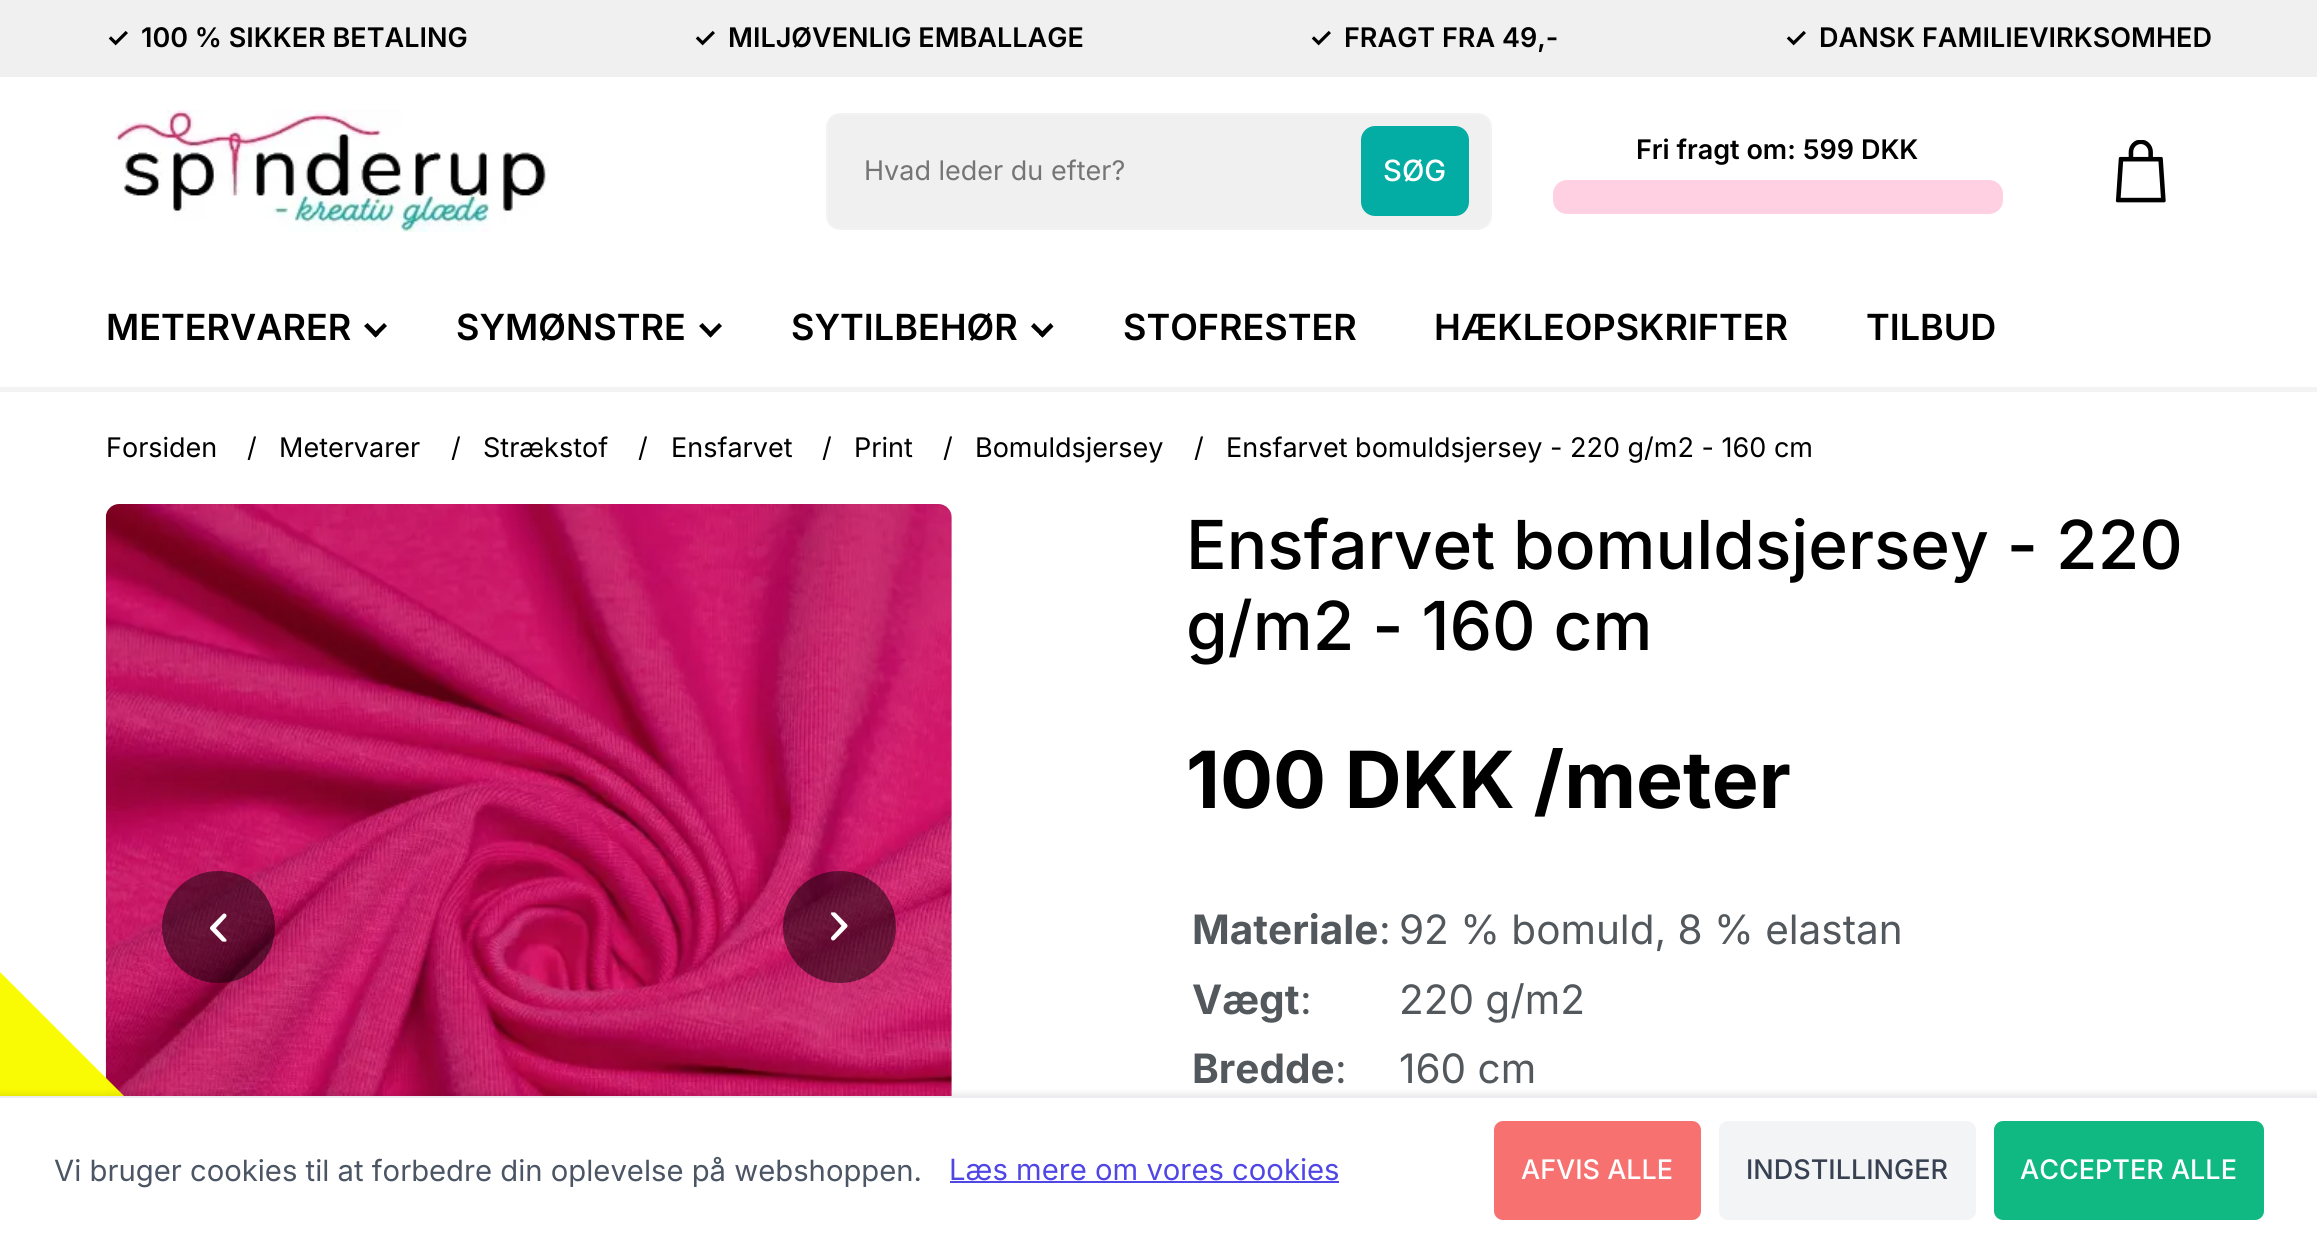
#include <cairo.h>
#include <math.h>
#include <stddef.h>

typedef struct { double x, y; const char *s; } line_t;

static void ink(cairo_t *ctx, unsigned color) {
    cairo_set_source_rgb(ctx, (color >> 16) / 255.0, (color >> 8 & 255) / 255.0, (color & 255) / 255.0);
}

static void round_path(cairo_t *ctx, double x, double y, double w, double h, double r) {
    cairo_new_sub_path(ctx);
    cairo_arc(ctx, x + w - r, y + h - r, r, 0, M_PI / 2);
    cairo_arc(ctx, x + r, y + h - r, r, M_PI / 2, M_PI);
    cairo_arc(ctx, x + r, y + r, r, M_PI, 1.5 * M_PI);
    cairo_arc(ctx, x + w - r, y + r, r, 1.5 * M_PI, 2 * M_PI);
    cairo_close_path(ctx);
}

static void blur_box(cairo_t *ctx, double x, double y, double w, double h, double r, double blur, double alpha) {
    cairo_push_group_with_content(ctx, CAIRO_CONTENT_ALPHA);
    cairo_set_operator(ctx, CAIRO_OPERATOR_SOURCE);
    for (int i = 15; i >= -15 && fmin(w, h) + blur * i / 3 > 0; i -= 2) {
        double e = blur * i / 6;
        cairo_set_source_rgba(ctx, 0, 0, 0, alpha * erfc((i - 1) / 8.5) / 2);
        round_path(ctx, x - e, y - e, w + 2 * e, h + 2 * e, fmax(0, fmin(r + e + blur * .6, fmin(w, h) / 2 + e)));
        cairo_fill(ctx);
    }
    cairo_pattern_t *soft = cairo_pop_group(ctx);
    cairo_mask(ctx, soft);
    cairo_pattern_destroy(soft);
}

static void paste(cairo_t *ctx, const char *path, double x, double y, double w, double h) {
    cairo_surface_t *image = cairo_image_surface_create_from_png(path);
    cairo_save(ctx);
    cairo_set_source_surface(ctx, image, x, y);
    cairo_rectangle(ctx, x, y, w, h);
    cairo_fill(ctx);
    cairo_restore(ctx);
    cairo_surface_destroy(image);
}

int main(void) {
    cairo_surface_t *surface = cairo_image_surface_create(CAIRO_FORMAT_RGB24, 2317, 1241);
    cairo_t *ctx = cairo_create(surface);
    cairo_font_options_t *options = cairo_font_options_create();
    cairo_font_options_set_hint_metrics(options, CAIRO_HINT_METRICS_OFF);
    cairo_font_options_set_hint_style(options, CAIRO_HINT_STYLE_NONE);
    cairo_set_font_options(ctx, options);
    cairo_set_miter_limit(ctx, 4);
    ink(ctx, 0xFFFFFF);
    cairo_paint(ctx);
    ink(ctx, 0xF0F0F0);
    cairo_rectangle(ctx, 0, 0, 2317, 77);
    cairo_fill(ctx);
    cairo_select_font_face(ctx, "Inter SemiBold", CAIRO_FONT_SLANT_NORMAL, CAIRO_FONT_WEIGHT_NORMAL);
    cairo_set_font_size(ctx, 27);
    ink(ctx, 0x000000);
    {
        static const line_t items[] = {
            {106, 47, "✓"},
            {141, 47, "100 % SIKKER BETALING"},
            {693, 47, "✓"},
            {728, 47, "MILJØVENLIG EMBALLAGE"},
            {1309, 47, "✓"},
            {1344, 47, "FRAGT FRA 49,-"},
            {1784, 47, "✓"},
            {1819, 47, "DANSK FAMILIEVIRKSOMHED"},
        };
        for (size_t i = 0; i < sizeof items / sizeof *items; i++) {
            cairo_move_to(ctx, items[i].x, items[i].y);
            cairo_show_text(ctx, items[i].s);
        }
    }
    ink(ctx, 0xF3F3F3);
    cairo_rectangle(ctx, 0, 387, 2317, 5);
    cairo_fill(ctx);
    paste(ctx, "media/1.png", 113, 110, 437, 122);
    ink(ctx, 0x000000);
    cairo_move_to(ctx, 1636, 159);
    cairo_show_text(ctx, "Fri fragt om: 599 DKK");
    ink(ctx, 0xFFD0E1);
    round_path(ctx, 1553, 180, 450, 34, 14);
    cairo_fill(ctx);
    paste(ctx, "media/2.png", 2115, 140, 51, 63);
    ink(ctx, 0xF0F0F0);
    round_path(ctx, 827, 114, 664, 115, 13);
    cairo_fill_preserve(ctx);
    ink(ctx, 0xF3F3F3);
    cairo_stroke(ctx);
    cairo_select_font_face(ctx, "Inter", CAIRO_FONT_SLANT_NORMAL, CAIRO_FONT_WEIGHT_NORMAL);
    ink(ctx, 0x757575);
    cairo_move_to(ctx, 864, 180);
    cairo_show_text(ctx, "Hvad leder du efter?");
    ink(ctx, 0x04ADA3);
    round_path(ctx, 1361, 126, 108, 90, 14);
    cairo_fill(ctx);
    cairo_select_font_face(ctx, "Inter Medium", CAIRO_FONT_SLANT_NORMAL, CAIRO_FONT_WEIGHT_NORMAL);
    cairo_set_font_size(ctx, 29.25);
    ink(ctx, 0xFFFFFF);
    cairo_move_to(ctx, 1383, 181);
    cairo_show_text(ctx, "SØG");
    cairo_select_font_face(ctx, "Inter SemiBold", CAIRO_FONT_SLANT_NORMAL, CAIRO_FONT_WEIGHT_NORMAL);
    cairo_set_font_size(ctx, 36);
    ink(ctx, 0x000000);
    cairo_move_to(ctx, 106, 340);
    cairo_show_text(ctx, "METERVARER");
    cairo_new_path(ctx);
    cairo_move_to(ctx, 387, 326);
    cairo_line_to(ctx, 375.5, 337.5);
    cairo_line_to(ctx, 372.5, 334.5);
    cairo_line_to(ctx, 384, 323);
    cairo_close_path(ctx);
    cairo_fill(ctx);
    cairo_new_path(ctx);
    cairo_move_to(ctx, 379, 334.5);
    cairo_line_to(ctx, 375.5, 337.5);
    cairo_line_to(ctx, 364, 326);
    cairo_line_to(ctx, 367.5, 323);
    cairo_close_path(ctx);
    cairo_fill(ctx);
    cairo_move_to(ctx, 456, 340);
    cairo_show_text(ctx, "SYMØNSTRE");
    cairo_new_path(ctx);
    cairo_move_to(ctx, 722, 326);
    cairo_line_to(ctx, 710.5, 337.5);
    cairo_line_to(ctx, 707.5, 334.5);
    cairo_line_to(ctx, 719, 323);
    cairo_close_path(ctx);
    cairo_fill(ctx);
    cairo_new_path(ctx);
    cairo_move_to(ctx, 713.5, 334.5);
    cairo_line_to(ctx, 710.5, 337.5);
    cairo_line_to(ctx, 699, 326);
    cairo_line_to(ctx, 702.5, 323);
    cairo_close_path(ctx);
    cairo_fill(ctx);
    cairo_move_to(ctx, 791, 340);
    cairo_show_text(ctx, "SYTILBEHØR");
    cairo_new_path(ctx);
    cairo_move_to(ctx, 1053.5, 326.5);
    cairo_line_to(ctx, 1042.5, 337.5);
    cairo_line_to(ctx, 1039, 334.5);
    cairo_line_to(ctx, 1050.5, 323);
    cairo_close_path(ctx);
    cairo_fill(ctx);
    cairo_new_path(ctx);
    cairo_move_to(ctx, 1045.5, 334.5);
    cairo_line_to(ctx, 1042.5, 337.5);
    cairo_line_to(ctx, 1031, 326.5);
    cairo_line_to(ctx, 1034, 323);
    cairo_close_path(ctx);
    cairo_fill(ctx);
    {
        static const line_t items[] = {
            {1123, 340, "STOFRESTER"},
            {1434, 340, "HÆKLEOPSKRIFTER"},
            {1866, 340, "TILBUD"},
        };
        for (size_t i = 0; i < sizeof items / sizeof *items; i++) {
            cairo_move_to(ctx, items[i].x, items[i].y);
            cairo_show_text(ctx, items[i].s);
        }
    }
    cairo_select_font_face(ctx, "Inter", CAIRO_FONT_SLANT_NORMAL, CAIRO_FONT_WEIGHT_NORMAL);
    cairo_set_font_size(ctx, 27);
    {
        static const line_t items[] = {
            {106, 457, "Forsiden"},
            {247, 457, "/"},
            {279, 457, "Metervarer"},
            {451, 457, "/"},
            {483, 457, "Strækstof"},
            {638, 457, "/"},
            {671, 457, "Ensfarvet"},
            {822, 457, "/"},
            {854, 457, "Print"},
            {943, 457, "/"},
            {975, 457, "Bomuldsjersey"},
            {1194, 457, "/"},
            {1226, 457, "Ensfarvet bomuldsjersey - 220 g/m2 - 160 cm"},
        };
        for (size_t i = 0; i < sizeof items / sizeof *items; i++) {
            cairo_move_to(ctx, items[i].x, items[i].y);
            cairo_show_text(ctx, items[i].s);
        }
    }
    ink(ctx, 0xF0F0F0);
    round_path(ctx, 106, 504, 846, 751, 14);
    cairo_fill(ctx);
    paste(ctx, "media/3.png", 105, 504, 847, 592);
    cairo_set_source_rgba(ctx, 0, 0, 0, 0.49);
    round_path(ctx, 162, 871, 113, 112, 56);
    cairo_fill(ctx);
    cairo_set_source_rgba(ctx, 0.976, 0.984, 0.012, 0.99);
    cairo_new_path(ctx);
    cairo_move_to(ctx, 0, 972);
    cairo_line_to(ctx, 0, 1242);
    cairo_line_to(ctx, 270, 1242);
    cairo_close_path(ctx);
    cairo_fill(ctx);
    paste(ctx, "media/4.png", 210, 913, 17, 29);
    cairo_set_source_rgba(ctx, 0, 0, 0, 0.49);
    round_path(ctx, 783, 871, 113, 112, 56);
    cairo_fill(ctx);
    paste(ctx, "media/5.png", 831, 912, 17, 29);
    cairo_select_font_face(ctx, "Inter Medium", CAIRO_FONT_SLANT_NORMAL, CAIRO_FONT_WEIGHT_NORMAL);
    cairo_set_font_size(ctx, 67.5);
    ink(ctx, 0x000000);
    cairo_move_to(ctx, 1186, 569);
    cairo_show_text(ctx, "Ensfarvet bomuldsjersey - 220");
    cairo_move_to(ctx, 1186, 650);
    cairo_show_text(ctx, "g/m2 - 160 cm");
    cairo_select_font_face(ctx, "Inter", CAIRO_FONT_SLANT_NORMAL, CAIRO_FONT_WEIGHT_BOLD);
    cairo_set_font_size(ctx, 78.75);
    cairo_move_to(ctx, 1186, 808);
    cairo_show_text(ctx, "100 DKK /meter");
    cairo_set_font_size(ctx, 40.5);
    ink(ctx, 0x53585D);
    cairo_move_to(ctx, 1192, 944);
    cairo_show_text(ctx, "Materiale");
    cairo_select_font_face(ctx, "Inter", CAIRO_FONT_SLANT_NORMAL, CAIRO_FONT_WEIGHT_NORMAL);
    cairo_move_to(ctx, 1379, 944);
    cairo_show_text(ctx, ":");
    cairo_move_to(ctx, 1399, 944);
    cairo_show_text(ctx, "92 % bomuld, 8 % elastan");
    cairo_select_font_face(ctx, "Inter", CAIRO_FONT_SLANT_NORMAL, CAIRO_FONT_WEIGHT_BOLD);
    cairo_move_to(ctx, 1192, 1014);
    cairo_show_text(ctx, "Vægt");
    cairo_select_font_face(ctx, "Inter", CAIRO_FONT_SLANT_NORMAL, CAIRO_FONT_WEIGHT_NORMAL);
    cairo_move_to(ctx, 1300, 1014);
    cairo_show_text(ctx, ":");
    cairo_move_to(ctx, 1399, 1014);
    cairo_show_text(ctx, "220 g/m2");
    cairo_select_font_face(ctx, "Inter", CAIRO_FONT_SLANT_NORMAL, CAIRO_FONT_WEIGHT_BOLD);
    cairo_move_to(ctx, 1192, 1083);
    cairo_show_text(ctx, "Bredde");
    cairo_select_font_face(ctx, "Inter", CAIRO_FONT_SLANT_NORMAL, CAIRO_FONT_WEIGHT_NORMAL);
    cairo_move_to(ctx, 1335, 1083);
    cairo_show_text(ctx, ":");
    cairo_move_to(ctx, 1399, 1083);
    cairo_show_text(ctx, "160 cm");
    ink(ctx, 0x000000);
    blur_box(ctx, 0, 1094, 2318, 146, 0, 3.5, 0.05);
    blur_box(ctx, 0, 1094, 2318, 146, 0, 3.5, 0.05);
    ink(ctx, 0xFFFFFF);
    cairo_rectangle(ctx, 0, 1098, 2317, 143);
    cairo_fill(ctx);
    ink(ctx, 0xEAECEF);
    cairo_rectangle(ctx, 0, 1096, 2317, 2);
    cairo_fill(ctx);
    cairo_set_font_size(ctx, 29.25);
    ink(ctx, 0x4B5563);
    cairo_move_to(ctx, 54, 1181);
    cairo_show_text(ctx, "Vi bruger cookies til at forbedre din oplevelse på webshoppen.");
    ink(ctx, 0x4F46E5);
    cairo_move_to(ctx, 949, 1180);
    cairo_show_text(ctx, "Læs mere om vores cookies");
    cairo_rectangle(ctx, 950, 1181, 389, 2);
    cairo_fill(ctx);
    ink(ctx, 0xF87171);
    round_path(ctx, 1494, 1121, 207, 99, 9);
    cairo_fill(ctx);
    cairo_select_font_face(ctx, "Inter Medium", CAIRO_FONT_SLANT_NORMAL, CAIRO_FONT_WEIGHT_NORMAL);
    cairo_set_font_size(ctx, 27);
    ink(ctx, 0xFFFFFF);
    cairo_move_to(ctx, 1521, 1179);
    cairo_show_text(ctx, "AFVIS ALLE");
    ink(ctx, 0xF3F4F6);
    round_path(ctx, 1719, 1121, 257, 99, 9);
    cairo_fill(ctx);
    ink(ctx, 0x374151);
    cairo_move_to(ctx, 1746, 1179);
    cairo_show_text(ctx, "INDSTILLINGER");
    ink(ctx, 0x10B981);
    round_path(ctx, 1994, 1121, 270, 99, 9);
    cairo_fill(ctx);
    ink(ctx, 0xFFFFFF);
    cairo_move_to(ctx, 2020, 1179);
    cairo_show_text(ctx, "ACCEPTER ALLE");
    cairo_surface_write_to_png(surface, "image.png");
    cairo_font_options_destroy(options);
    cairo_destroy(ctx);
    cairo_surface_destroy(surface);
    return 0;
}
